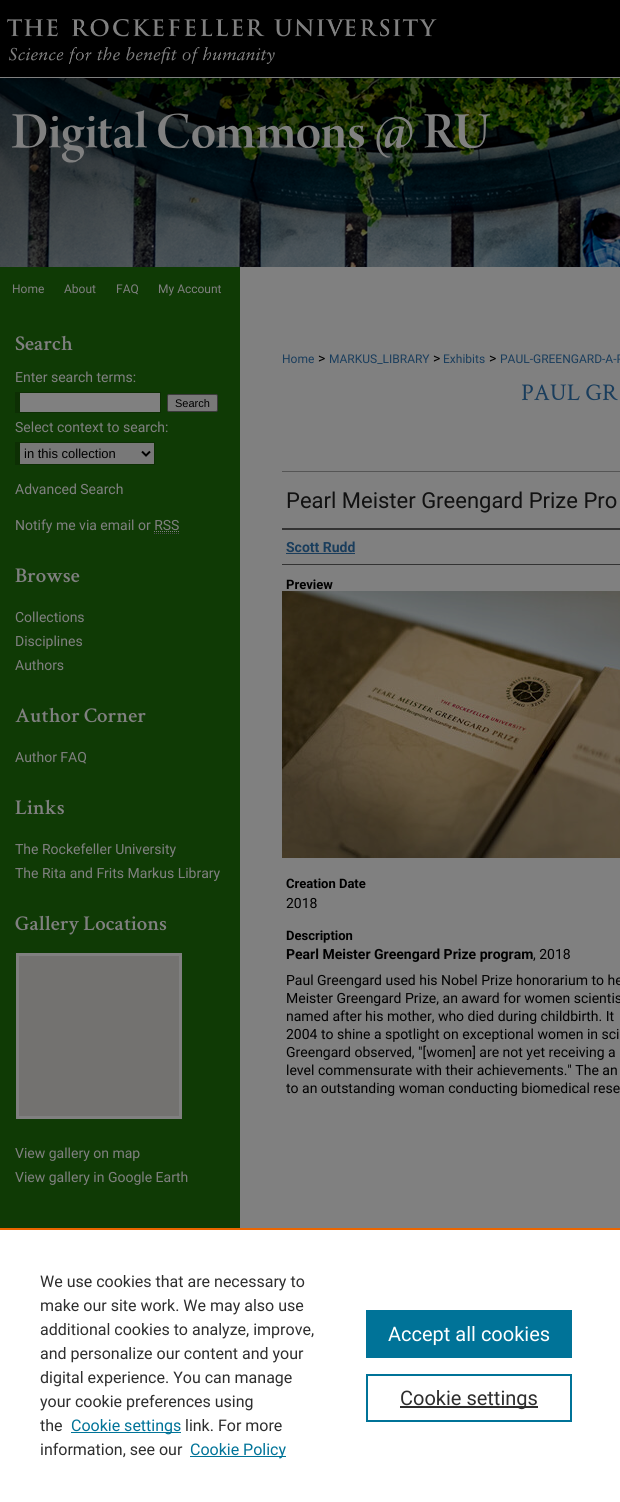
#include <cairo.h>
#include <math.h>
#include <stddef.h>

typedef struct { double x, y; const char *s; } line_t;
typedef struct { double x, y, w, h; unsigned color; } box_t;

static void ink(cairo_t *ctx, unsigned color) {
    cairo_set_source_rgb(ctx, (color >> 16) / 255.0, (color >> 8 & 255) / 255.0, (color & 255) / 255.0);
}

static void round_path(cairo_t *ctx, double x, double y, double w, double h, double r) {
    cairo_new_sub_path(ctx);
    cairo_arc(ctx, x + w - r, y + h - r, r, 0, M_PI / 2);
    cairo_arc(ctx, x + r, y + h - r, r, M_PI / 2, M_PI);
    cairo_arc(ctx, x + r, y + r, r, M_PI, 1.5 * M_PI);
    cairo_arc(ctx, x + w - r, y + r, r, 1.5 * M_PI, 2 * M_PI);
    cairo_close_path(ctx);
}

static void paste(cairo_t *ctx, const char *path, double x, double y, double w, double h) {
    cairo_surface_t *image = cairo_image_surface_create_from_png(path);
    cairo_save(ctx);
    cairo_set_source_surface(ctx, image, x, y);
    cairo_rectangle(ctx, x, y, w, h);
    cairo_fill(ctx);
    cairo_restore(ctx);
    cairo_surface_destroy(image);
}

int main(void) {
    cairo_surface_t *surface = cairo_image_surface_create(CAIRO_FORMAT_RGB24, 620, 1502);
    cairo_t *ctx = cairo_create(surface);
    cairo_font_options_t *options = cairo_font_options_create();
    cairo_font_options_set_hint_metrics(options, CAIRO_HINT_METRICS_OFF);
    cairo_font_options_set_hint_style(options, CAIRO_HINT_STYLE_NONE);
    cairo_set_font_options(ctx, options);
    cairo_set_miter_limit(ctx, 4);
    ink(ctx, 0x808080);
    cairo_paint(ctx);
    paste(ctx, "media/1.png", 0, 0, 620, 267);
    paste(ctx, "media/2.png", 7, 19, 430, 45);
    paste(ctx, "media/3.png", 12, 110, 478, 53);
    ink(ctx, 0x0F3A05);
    cairo_rectangle(ctx, 0, 267, 240, 961);
    cairo_fill(ctx);
    cairo_select_font_face(ctx, "Roboto", CAIRO_FONT_SLANT_NORMAL, CAIRO_FONT_WEIGHT_NORMAL);
    cairo_set_font_size(ctx, 12);
    ink(ctx, 0x808080);
    {
        static const line_t items[] = {
            {12, 293, "Home"},
            {64, 293, "About"},
            {116, 293, "FAQ"},
            {158, 293, "My Account"},
        };
        for (size_t i = 0; i < sizeof items / sizeof *items; i++) {
            cairo_move_to(ctx, items[i].x, items[i].y);
            cairo_show_text(ctx, items[i].s);
        }
    }
    cairo_select_font_face(ctx, "Crimson Text SemiBold", CAIRO_FONT_SLANT_NORMAL, CAIRO_FONT_WEIGHT_NORMAL);
    cairo_set_font_size(ctx, 21);
    cairo_move_to(ctx, 15, 350);
    cairo_show_text(ctx, "Search");
    cairo_select_font_face(ctx, "Roboto", CAIRO_FONT_SLANT_NORMAL, CAIRO_FONT_WEIGHT_NORMAL);
    cairo_set_font_size(ctx, 14);
    cairo_move_to(ctx, 15, 382);
    cairo_show_text(ctx, "Enter search terms:");
    {
        static const box_t items[] = {
            {20, 393, 140, 19, 0x808080},
            {15, 392, 146, 1, 0x0D2F04},
            {160, 392, 1, 21, 0x0D2F04},
            {15, 412, 146, 1, 0x0D2F04},
            {15, 392, 5, 21, 0x0D2F04},
        };
        for (size_t i = 0; i < sizeof items / sizeof *items; i++) {
            ink(ctx, items[i].color);
            cairo_rectangle(ctx, items[i].x, items[i].y, items[i].w, items[i].h);
            cairo_fill(ctx);
        }
    }
    ink(ctx, 0x787878);
    round_path(ctx, 167.5, 394.5, 50, 17, 1.5);
    cairo_fill_preserve(ctx);
    ink(ctx, 0x3B3B3B);
    cairo_set_line_width(ctx, 1);
    cairo_stroke(ctx);
    cairo_select_font_face(ctx, "Liberation Sans", CAIRO_FONT_SLANT_NORMAL, CAIRO_FONT_WEIGHT_NORMAL);
    cairo_set_font_size(ctx, 11);
    ink(ctx, 0x000000);
    cairo_move_to(ctx, 175, 407);
    cairo_show_text(ctx, "Search");
    cairo_select_font_face(ctx, "Roboto", CAIRO_FONT_SLANT_NORMAL, CAIRO_FONT_WEIGHT_NORMAL);
    cairo_set_font_size(ctx, 14);
    ink(ctx, 0x808080);
    cairo_move_to(ctx, 15, 432);
    cairo_show_text(ctx, "Select context to search:");
    {
        static const box_t items[] = {
            {20, 443, 134, 21, 0x787878},
            {15, 442, 140, 1, 0x0D2F04},
            {154, 442, 1, 23, 0x0D2F04},
            {15, 464, 140, 1, 0x0D2F04},
            {15, 442, 5, 23, 0x0D2F04},
        };
        for (size_t i = 0; i < sizeof items / sizeof *items; i++) {
            ink(ctx, items[i].color);
            cairo_rectangle(ctx, items[i].x, items[i].y, items[i].w, items[i].h);
            cairo_fill(ctx);
        }
    }
    cairo_new_path(ctx);
    cairo_move_to(ctx, 142, 451.5);
    cairo_line_to(ctx, 146, 455.5);
    cairo_line_to(ctx, 150, 451.5);
    ink(ctx, 0x000000);
    cairo_set_line_width(ctx, 2);
    cairo_stroke(ctx);
    cairo_select_font_face(ctx, "Liberation Sans", CAIRO_FONT_SLANT_NORMAL, CAIRO_FONT_WEIGHT_NORMAL);
    cairo_set_font_size(ctx, 13);
    cairo_move_to(ctx, 24, 458);
    cairo_show_text(ctx, "in this collection");
    cairo_select_font_face(ctx, "Roboto", CAIRO_FONT_SLANT_NORMAL, CAIRO_FONT_WEIGHT_NORMAL);
    cairo_set_font_size(ctx, 14);
    ink(ctx, 0x808080);
    cairo_move_to(ctx, 15, 494);
    cairo_show_text(ctx, "Advanced Search");
    cairo_move_to(ctx, 15, 530);
    cairo_show_text(ctx, "Notify me via email or RSS");
    cairo_new_path(ctx);
    cairo_move_to(ctx, 154, 531.5);
    cairo_line_to(ctx, 179.5, 531.5);
    cairo_set_line_width(ctx, 1);
    cairo_set_dash(ctx, (double[]){1, 1}, 2, 0);
    cairo_stroke(ctx);
    cairo_new_path(ctx);
    cairo_move_to(ctx, 154, 533.5);
    cairo_line_to(ctx, 179, 533.5);
    ink(ctx, 0x4D4D4D);
    cairo_stroke(ctx);
    cairo_select_font_face(ctx, "Crimson Text SemiBold", CAIRO_FONT_SLANT_NORMAL, CAIRO_FONT_WEIGHT_NORMAL);
    cairo_set_font_size(ctx, 21);
    ink(ctx, 0x808080);
    cairo_move_to(ctx, 15, 582);
    cairo_show_text(ctx, "Browse");
    cairo_select_font_face(ctx, "Roboto", CAIRO_FONT_SLANT_NORMAL, CAIRO_FONT_WEIGHT_NORMAL);
    cairo_set_font_size(ctx, 14);
    {
        static const line_t items[] = {
            {15, 622, "Collections"},
            {15, 646, "Disciplines"},
            {15, 670, "Authors"},
        };
        for (size_t i = 0; i < sizeof items / sizeof *items; i++) {
            cairo_move_to(ctx, items[i].x, items[i].y);
            cairo_show_text(ctx, items[i].s);
        }
    }
    cairo_select_font_face(ctx, "Crimson Text SemiBold", CAIRO_FONT_SLANT_NORMAL, CAIRO_FONT_WEIGHT_NORMAL);
    cairo_set_font_size(ctx, 21);
    cairo_move_to(ctx, 15, 722);
    cairo_show_text(ctx, "Author Corner");
    cairo_select_font_face(ctx, "Roboto", CAIRO_FONT_SLANT_NORMAL, CAIRO_FONT_WEIGHT_NORMAL);
    cairo_set_font_size(ctx, 14);
    cairo_move_to(ctx, 15, 762);
    cairo_show_text(ctx, "Author FAQ");
    cairo_select_font_face(ctx, "Crimson Text SemiBold", CAIRO_FONT_SLANT_NORMAL, CAIRO_FONT_WEIGHT_NORMAL);
    cairo_set_font_size(ctx, 21);
    cairo_move_to(ctx, 15, 814);
    cairo_show_text(ctx, "Links");
    cairo_select_font_face(ctx, "Roboto", CAIRO_FONT_SLANT_NORMAL, CAIRO_FONT_WEIGHT_NORMAL);
    cairo_set_font_size(ctx, 14);
    cairo_move_to(ctx, 15, 854);
    cairo_show_text(ctx, "The Rockefeller University");
    cairo_move_to(ctx, 15, 878);
    cairo_show_text(ctx, "The Rita and Frits Markus Library");
    cairo_select_font_face(ctx, "Crimson Text SemiBold", CAIRO_FONT_SLANT_NORMAL, CAIRO_FONT_WEIGHT_NORMAL);
    cairo_set_font_size(ctx, 21);
    cairo_move_to(ctx, 15, 930);
    cairo_show_text(ctx, "Gallery Locations");
    cairo_rectangle(ctx, 17.5, 954.5, 163, 163);
    cairo_set_line_width(ctx, 3);
    cairo_set_dash(ctx, NULL, 0, 0);
    cairo_stroke(ctx);
    ink(ctx, 0x737270);
    cairo_rectangle(ctx, 19, 956, 160, 160);
    cairo_fill(ctx);
    cairo_select_font_face(ctx, "Roboto", CAIRO_FONT_SLANT_NORMAL, CAIRO_FONT_WEIGHT_NORMAL);
    cairo_set_font_size(ctx, 14);
    ink(ctx, 0x808080);
    cairo_move_to(ctx, 15, 1158);
    cairo_show_text(ctx, "View gallery on map");
    cairo_move_to(ctx, 15, 1182);
    cairo_show_text(ctx, "View gallery in Google Earth");
    cairo_set_font_size(ctx, 12);
    ink(ctx, 0x1A3D5C);
    cairo_move_to(ctx, 282, 363);
    cairo_show_text(ctx, "Home");
    cairo_set_font_size(ctx, 14);
    ink(ctx, 0x000000);
    cairo_move_to(ctx, 318, 363);
    cairo_show_text(ctx, ">");
    cairo_set_font_size(ctx, 12);
    ink(ctx, 0x1A3D5C);
    cairo_move_to(ctx, 329, 363);
    cairo_show_text(ctx, "MARKUS_LIBRARY");
    cairo_set_font_size(ctx, 14);
    ink(ctx, 0x000000);
    cairo_move_to(ctx, 433, 363);
    cairo_show_text(ctx, ">");
    cairo_set_font_size(ctx, 12);
    ink(ctx, 0x1A3D5C);
    cairo_move_to(ctx, 443, 363);
    cairo_show_text(ctx, "Exhibits");
    cairo_set_font_size(ctx, 14);
    ink(ctx, 0x000000);
    cairo_move_to(ctx, 489, 363);
    cairo_show_text(ctx, ">");
    cairo_set_font_size(ctx, 12);
    ink(ctx, 0x1A3D5C);
    cairo_move_to(ctx, 500, 363);
    cairo_show_text(ctx, "PAUL-GREENGARD-A-P");
    cairo_select_font_face(ctx, "Crimson Text", CAIRO_FONT_SLANT_NORMAL, CAIRO_FONT_WEIGHT_NORMAL);
    cairo_set_font_size(ctx, 24);
    cairo_move_to(ctx, 521, 400);
    cairo_show_text(ctx, "PAUL GR");
    ink(ctx, 0x555555);
    cairo_rectangle(ctx, 282, 471, 338, 1);
    cairo_fill(ctx);
    cairo_select_font_face(ctx, "Roboto", CAIRO_FONT_SLANT_NORMAL, CAIRO_FONT_WEIGHT_NORMAL);
    cairo_set_font_size(ctx, 22);
    ink(ctx, 0x111111);
    cairo_move_to(ctx, 286, 508);
    cairo_show_text(ctx, "Pearl Meister Greengard Prize Pro");
    ink(ctx, 0x333333);
    cairo_rectangle(ctx, 282, 528, 338, 2);
    cairo_fill(ctx);
    cairo_rectangle(ctx, 282, 564, 338, 1);
    cairo_fill(ctx);
    cairo_select_font_face(ctx, "Roboto", CAIRO_FONT_SLANT_NORMAL, CAIRO_FONT_WEIGHT_BOLD);
    cairo_set_font_size(ctx, 14);
    ink(ctx, 0x1A3D5C);
    cairo_move_to(ctx, 286, 552);
    cairo_show_text(ctx, "Scott Rudd");
    cairo_rectangle(ctx, 286, 553, 69, 1);
    cairo_fill(ctx);
    cairo_set_font_size(ctx, 13);
    ink(ctx, 0x000000);
    cairo_move_to(ctx, 286, 589);
    cairo_show_text(ctx, "Preview");
    paste(ctx, "media/4.png", 282, 591, 338, 267);
    cairo_move_to(ctx, 286, 888);
    cairo_show_text(ctx, "Creation Date");
    cairo_select_font_face(ctx, "Roboto", CAIRO_FONT_SLANT_NORMAL, CAIRO_FONT_WEIGHT_NORMAL);
    cairo_set_font_size(ctx, 14);
    cairo_move_to(ctx, 286, 908);
    cairo_show_text(ctx, "2018");
    cairo_select_font_face(ctx, "Roboto", CAIRO_FONT_SLANT_NORMAL, CAIRO_FONT_WEIGHT_BOLD);
    cairo_set_font_size(ctx, 13);
    cairo_move_to(ctx, 286, 940);
    cairo_show_text(ctx, "Description");
    cairo_set_font_size(ctx, 14);
    cairo_move_to(ctx, 286, 959);
    cairo_show_text(ctx, "Pearl Meister Greengard Prize program");
    cairo_select_font_face(ctx, "Roboto", CAIRO_FONT_SLANT_NORMAL, CAIRO_FONT_WEIGHT_NORMAL);
    {
        static const line_t items[] = {
            {533, 959, ", 2018"},
            {286, 985, "Paul Greengard used his Nobel Prize honorarium to he"},
            {286, 1003, "Meister Greengard Prize, an award for women scientis"},
            {286, 1021, "named after his mother, who died during childbirth. It"},
            {286, 1039, "2004 to shine a spotlight on exceptional women in sci"},
            {286, 1057, "Greengard observed, \"[women] are not yet receiving a"},
            {286, 1075, "level commensurate with their achievements.\" The an"},
            {286, 1093, "to an outstanding woman conducting biomedical rese"},
        };
        for (size_t i = 0; i < sizeof items / sizeof *items; i++) {
            cairo_move_to(ctx, items[i].x, items[i].y);
            cairo_show_text(ctx, items[i].s);
        }
    }
    ink(ctx, 0xFFFFFF);
    cairo_rectangle(ctx, 0, 1230, 620, 272);
    cairo_fill(ctx);
    ink(ctx, 0xEB6500);
    cairo_rectangle(ctx, 0, 1228, 620, 2);
    cairo_fill(ctx);
    cairo_set_font_size(ctx, 16);
    ink(ctx, 0x2E2E2E);
    {
        static const line_t items[] = {
            {40, 1287, "We use cookies that are necessary to"},
            {40, 1311, "make our site work. We may also use"},
            {40, 1335, "additional cookies to analyze, improve,"},
            {40, 1359, "and personalize our content and your"},
            {40, 1383, "digital experience. You can manage"},
            {40, 1407, "your cookie preferences using"},
            {40, 1431, "the"},
        };
        for (size_t i = 0; i < sizeof items / sizeof *items; i++) {
            cairo_move_to(ctx, items[i].x, items[i].y);
            cairo_show_text(ctx, items[i].s);
        }
    }
    ink(ctx, 0x007398);
    cairo_rectangle(ctx, 71, 1432, 110, 1);
    cairo_fill(ctx);
    cairo_move_to(ctx, 71, 1431);
    cairo_show_text(ctx, "Cookie settings");
    ink(ctx, 0x2E2E2E);
    cairo_move_to(ctx, 185, 1431);
    cairo_show_text(ctx, "link. For more");
    cairo_move_to(ctx, 40, 1455);
    cairo_show_text(ctx, "information, see our");
    ink(ctx, 0x007398);
    cairo_rectangle(ctx, 190, 1456, 96, 1);
    cairo_fill(ctx);
    cairo_move_to(ctx, 190, 1455);
    cairo_show_text(ctx, "Cookie Policy");
    cairo_rectangle(ctx, 366, 1310, 206, 48);
    cairo_fill(ctx);
    cairo_set_font_size(ctx, 20);
    ink(ctx, 0xFFFFFF);
    cairo_move_to(ctx, 388, 1341);
    cairo_show_text(ctx, "Accept all cookies");
    cairo_rectangle(ctx, 367, 1375, 204, 46);
    ink(ctx, 0x007398);
    cairo_set_line_width(ctx, 2);
    cairo_stroke(ctx);
    ink(ctx, 0x2E2E2E);
    cairo_rectangle(ctx, 400, 1406, 138, 2);
    cairo_fill(ctx);
    cairo_move_to(ctx, 400, 1405);
    cairo_show_text(ctx, "Cookie settings");
    cairo_surface_write_to_png(surface, "image.png");
    cairo_font_options_destroy(options);
    cairo_destroy(ctx);
    cairo_surface_destroy(surface);
    return 0;
}
